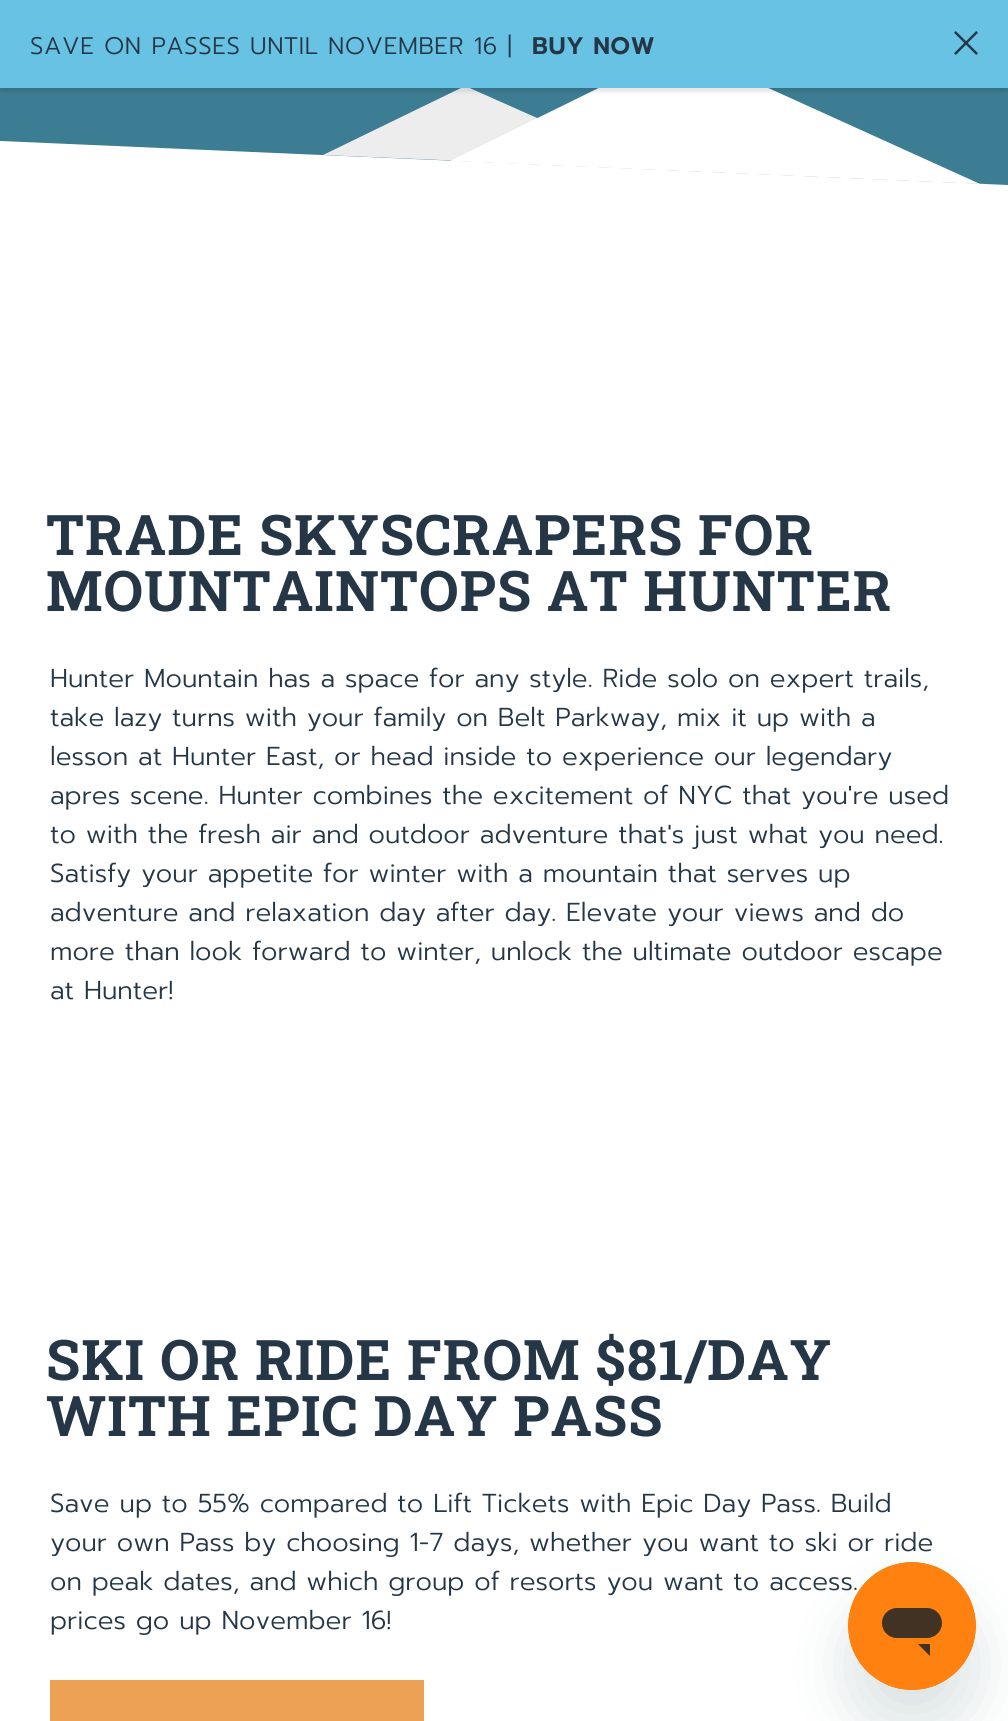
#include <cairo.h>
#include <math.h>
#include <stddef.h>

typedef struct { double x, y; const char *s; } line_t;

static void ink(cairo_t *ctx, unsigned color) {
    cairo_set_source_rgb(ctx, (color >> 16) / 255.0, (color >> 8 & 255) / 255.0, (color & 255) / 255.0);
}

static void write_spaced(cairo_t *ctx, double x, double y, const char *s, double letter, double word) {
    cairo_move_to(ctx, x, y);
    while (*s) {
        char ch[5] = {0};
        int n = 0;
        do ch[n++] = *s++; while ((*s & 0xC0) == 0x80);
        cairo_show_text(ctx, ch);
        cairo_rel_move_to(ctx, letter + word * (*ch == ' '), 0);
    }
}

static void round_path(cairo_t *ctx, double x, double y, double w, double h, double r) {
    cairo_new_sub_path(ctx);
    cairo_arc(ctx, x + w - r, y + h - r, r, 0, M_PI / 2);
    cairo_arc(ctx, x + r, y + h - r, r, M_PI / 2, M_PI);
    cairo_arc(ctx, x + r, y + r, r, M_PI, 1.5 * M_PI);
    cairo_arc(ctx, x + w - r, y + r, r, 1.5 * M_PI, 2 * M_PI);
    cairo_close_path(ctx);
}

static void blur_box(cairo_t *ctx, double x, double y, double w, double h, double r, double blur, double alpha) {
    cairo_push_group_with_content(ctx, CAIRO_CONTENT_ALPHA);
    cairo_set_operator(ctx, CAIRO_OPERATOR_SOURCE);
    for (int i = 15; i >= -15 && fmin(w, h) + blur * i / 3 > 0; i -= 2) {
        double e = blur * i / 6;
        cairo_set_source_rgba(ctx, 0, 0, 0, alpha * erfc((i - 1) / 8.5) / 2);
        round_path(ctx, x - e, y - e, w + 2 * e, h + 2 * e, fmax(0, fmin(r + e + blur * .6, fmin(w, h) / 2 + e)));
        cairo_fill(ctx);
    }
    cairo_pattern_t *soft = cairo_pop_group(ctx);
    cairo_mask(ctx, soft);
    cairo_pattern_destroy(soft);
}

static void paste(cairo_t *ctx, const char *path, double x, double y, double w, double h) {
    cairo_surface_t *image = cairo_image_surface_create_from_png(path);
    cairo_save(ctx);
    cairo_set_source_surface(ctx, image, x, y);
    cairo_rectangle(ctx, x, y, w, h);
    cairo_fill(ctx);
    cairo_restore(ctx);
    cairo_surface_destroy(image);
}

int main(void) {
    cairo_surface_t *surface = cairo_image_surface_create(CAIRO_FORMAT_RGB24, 1008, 1721);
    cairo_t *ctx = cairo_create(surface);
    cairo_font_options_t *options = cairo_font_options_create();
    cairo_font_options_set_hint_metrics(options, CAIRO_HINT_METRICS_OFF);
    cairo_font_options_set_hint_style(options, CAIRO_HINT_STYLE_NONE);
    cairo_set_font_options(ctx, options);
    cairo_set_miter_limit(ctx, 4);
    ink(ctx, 0xFFFFFF);
    cairo_paint(ctx);
    ink(ctx, 0x3D7D94);
    cairo_new_path(ctx);
    cairo_move_to(ctx, 0, -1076);
    cairo_line_to(ctx, 1008, -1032);
    cairo_line_to(ctx, 1008, 185);
    cairo_line_to(ctx, 0, 141);
    cairo_close_path(ctx);
    cairo_fill(ctx);
    ink(ctx, 0xEDEDED);
    cairo_new_path(ctx);
    cairo_move_to(ctx, 652, 169);
    cairo_line_to(ctx, 465, 86);
    cairo_line_to(ctx, 323, 155);
    cairo_close_path(ctx);
    cairo_fill(ctx);
    ink(ctx, 0xFFFFFF);
    cairo_new_path(ctx);
    cairo_move_to(ctx, 680, 48);
    cairo_line_to(ctx, 450, 161);
    cairo_line_to(ctx, 980, 184);
    cairo_close_path(ctx);
    cairo_fill(ctx);
    ink(ctx, 0x000000);
    blur_box(ctx, 0, -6, 1008, 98, 0, 2, 0.1);
    ink(ctx, 0x68C2E3);
    cairo_rectangle(ctx, 0, 0, 1008, 88);
    cairo_fill(ctx);
    cairo_select_font_face(ctx, "Prompt Light", CAIRO_FONT_SLANT_NORMAL, CAIRO_FONT_WEIGHT_NORMAL);
    cairo_set_font_size(ctx, 24);
    ink(ctx, 0x253746);
    write_spaced(ctx, 30, 54, "SAVE ON PASSES UNTIL NOVEMBER 16 |", 0.6, 0);
    cairo_select_font_face(ctx, "Prompt SemiBold", CAIRO_FONT_SLANT_NORMAL, CAIRO_FONT_WEIGHT_NORMAL);
    write_spaced(ctx, 532, 54, "BUY NOW", 0.6, 0);
    paste(ctx, "media/1.png", 954, 31, 24, 24);
    cairo_select_font_face(ctx, "Roboto Slab", CAIRO_FONT_SLANT_NORMAL, CAIRO_FONT_WEIGHT_BOLD);
    cairo_set_font_size(ctx, 56);
    write_spaced(ctx, 46, 555, "TRADE SKYSCRAPERS FOR", 1.1, 0);
    write_spaced(ctx, 46, 611, "MOUNTAINTOPS AT HUNTER", 1.1, 0);
    cairo_select_font_face(ctx, "Prompt Light", CAIRO_FONT_SLANT_NORMAL, CAIRO_FONT_WEIGHT_NORMAL);
    cairo_set_font_size(ctx, 26);
    {
        static const line_t items[] = {
            {50, 687, "Hunter Mountain has a space for any style. Ride solo on expert trails,"},
            {50, 726, "take lazy turns with your family on Belt Parkway, mix it up with a"},
            {50, 765, "lesson at Hunter East, or head inside to experience our legendary"},
            {50, 804, "apres scene. Hunter combines the excitement of NYC that you're used"},
            {50, 843, "to with the fresh air and outdoor adventure that's just what you need."},
            {50, 882, "Satisfy your appetite for winter with a mountain that serves up"},
            {50, 921, "adventure and relaxation day after day. Elevate your views and do"},
            {50, 960, "more than look forward to winter, unlock the ultimate outdoor escape"},
            {50, 999, "at Hunter!"},
        };
        for (size_t i = 0; i < sizeof items / sizeof *items; i++) {
            cairo_move_to(ctx, items[i].x, items[i].y);
            cairo_show_text(ctx, items[i].s);
        }
    }
    cairo_select_font_face(ctx, "Roboto Slab", CAIRO_FONT_SLANT_NORMAL, CAIRO_FONT_WEIGHT_BOLD);
    cairo_set_font_size(ctx, 56);
    write_spaced(ctx, 46, 1380, "SKI OR RIDE FROM $81/DAY", 1.1, 0);
    write_spaced(ctx, 46, 1436, "WITH EPIC DAY PASS", 1.1, 0);
    cairo_select_font_face(ctx, "Prompt Light", CAIRO_FONT_SLANT_NORMAL, CAIRO_FONT_WEIGHT_NORMAL);
    cairo_set_font_size(ctx, 26);
    {
        static const line_t items[] = {
            {50, 1512, "Save up to 55% compared to Lift Tickets with Epic Day Pass. Build"},
            {50, 1551, "your own Pass by choosing 1-7 days, whether you want to ski or ride"},
            {50, 1590, "on peak dates, and which group of resorts you want to access."},
            {50, 1629, "prices go up November 16!"},
        };
        for (size_t i = 0; i < sizeof items / sizeof *items; i++) {
            cairo_move_to(ctx, items[i].x, items[i].y);
            cairo_show_text(ctx, items[i].s);
        }
    }
    ink(ctx, 0xECA154);
    cairo_rectangle(ctx, 50, 1680, 374, 41);
    cairo_fill(ctx);
    ink(ctx, 0x17494D);
    blur_box(ctx, 848, 1602, 128, 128, 64, 30, 0.15);
    paste(ctx, "media/2.png", 848, 1562, 128, 128);
    cairo_surface_write_to_png(surface, "image.png");
    cairo_font_options_destroy(options);
    cairo_destroy(ctx);
    cairo_surface_destroy(surface);
    return 0;
}
